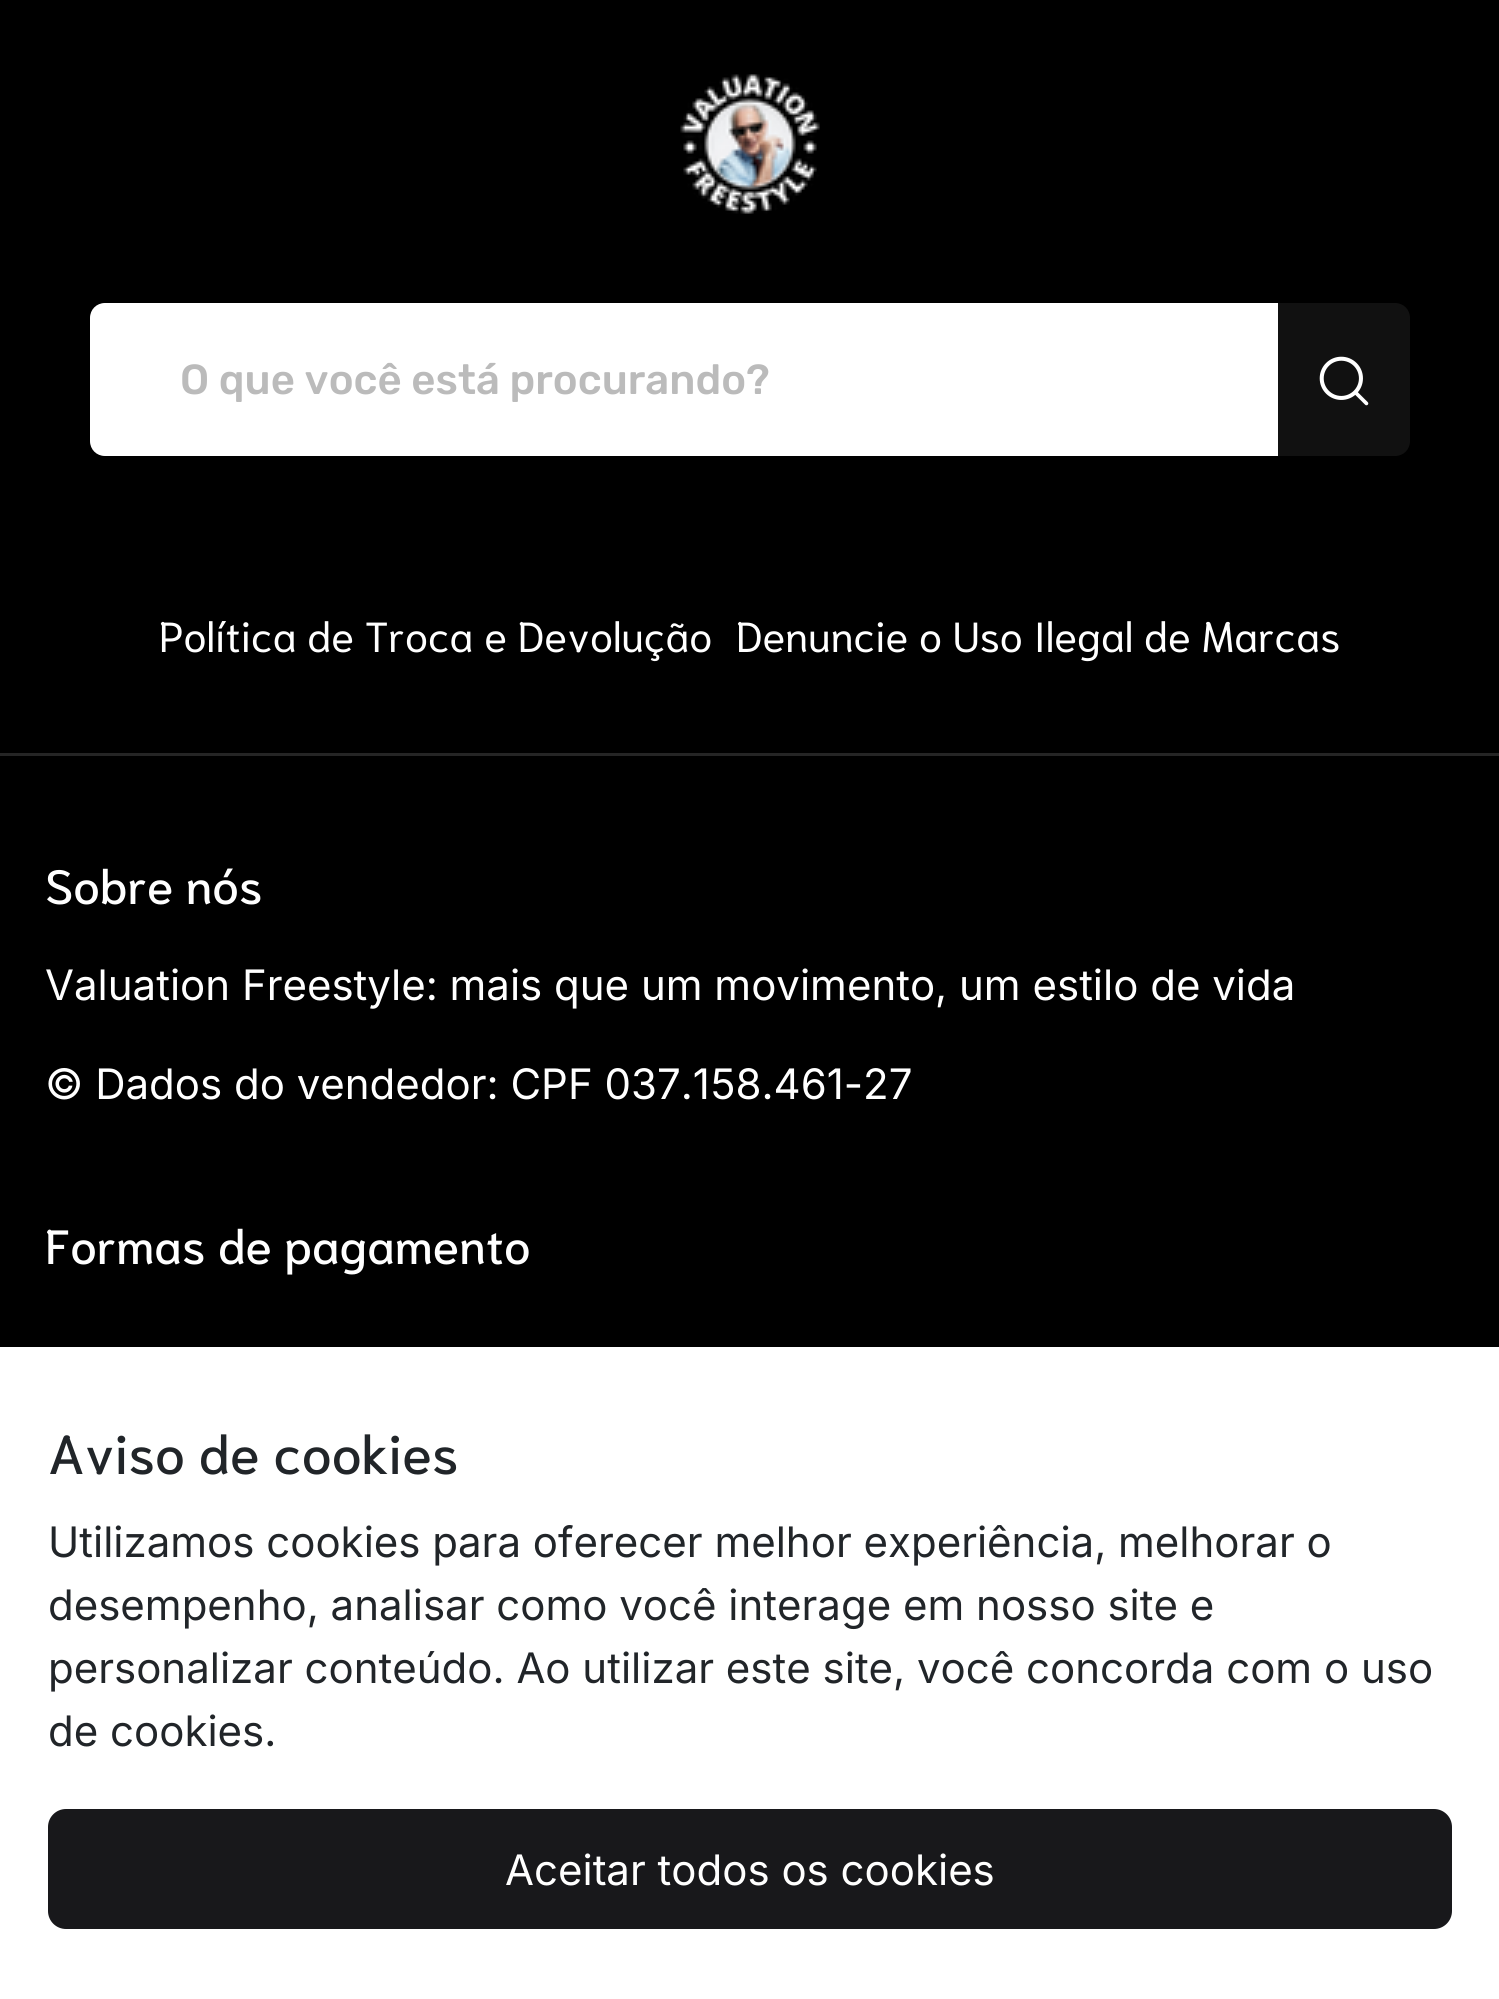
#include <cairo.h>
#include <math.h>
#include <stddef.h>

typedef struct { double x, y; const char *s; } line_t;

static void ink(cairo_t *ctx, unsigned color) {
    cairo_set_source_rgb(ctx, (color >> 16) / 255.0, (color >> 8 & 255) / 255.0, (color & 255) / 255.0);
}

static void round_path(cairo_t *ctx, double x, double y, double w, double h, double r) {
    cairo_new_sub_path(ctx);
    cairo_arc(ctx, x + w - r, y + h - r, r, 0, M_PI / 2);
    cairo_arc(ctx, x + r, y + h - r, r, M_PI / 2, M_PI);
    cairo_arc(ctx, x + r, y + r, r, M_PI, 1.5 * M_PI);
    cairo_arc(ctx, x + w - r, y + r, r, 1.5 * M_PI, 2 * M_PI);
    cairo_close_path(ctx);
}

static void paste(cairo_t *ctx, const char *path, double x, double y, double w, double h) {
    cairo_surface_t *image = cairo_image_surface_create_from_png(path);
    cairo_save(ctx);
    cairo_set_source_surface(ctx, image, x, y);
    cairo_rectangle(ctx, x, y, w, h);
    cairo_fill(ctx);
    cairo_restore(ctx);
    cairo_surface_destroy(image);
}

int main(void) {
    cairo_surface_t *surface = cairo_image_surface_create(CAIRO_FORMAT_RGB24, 1499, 1999);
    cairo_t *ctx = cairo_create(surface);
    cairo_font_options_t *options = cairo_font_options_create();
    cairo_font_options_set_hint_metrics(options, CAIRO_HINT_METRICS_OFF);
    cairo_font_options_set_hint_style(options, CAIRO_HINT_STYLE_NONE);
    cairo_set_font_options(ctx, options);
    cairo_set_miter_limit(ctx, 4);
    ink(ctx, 0x000000);
    cairo_paint(ctx);
    paste(ctx, "media/1.png", 680, 74, 140, 140);
    ink(ctx, 0xFFFFFF);
    cairo_new_path(ctx);
    cairo_move_to(ctx, 105, 303);
    cairo_line_to(ctx, 1278, 303);
    cairo_line_to(ctx, 1278, 456);
    cairo_line_to(ctx, 105, 456);
    cairo_curve_to(ctx, 96.5, 456, 90, 449.5, 90, 441);
    cairo_line_to(ctx, 90, 318);
    cairo_curve_to(ctx, 90, 309.5, 96.5, 303, 105, 303);
    cairo_close_path(ctx);
    cairo_fill(ctx);
    cairo_select_font_face(ctx, "Rubik Medium", CAIRO_FONT_SLANT_NORMAL, CAIRO_FONT_WEIGHT_NORMAL);
    cairo_set_font_size(ctx, 42);
    ink(ctx, 0xBBBBBB);
    cairo_move_to(ctx, 180, 394);
    cairo_show_text(ctx, "O que você está procurando?");
    ink(ctx, 0x111111);
    cairo_new_path(ctx);
    cairo_move_to(ctx, 1278, 303);
    cairo_line_to(ctx, 1395, 303);
    cairo_curve_to(ctx, 1403.5, 303, 1410, 309.5, 1410, 318);
    cairo_line_to(ctx, 1410, 441);
    cairo_curve_to(ctx, 1410, 449.5, 1403.5, 456, 1395, 456);
    cairo_line_to(ctx, 1278, 456);
    cairo_close_path(ctx);
    cairo_fill(ctx);
    paste(ctx, "media/2.png", 1319, 356, 50, 50);
    cairo_select_font_face(ctx, "Niramit", CAIRO_FONT_SLANT_NORMAL, CAIRO_FONT_WEIGHT_NORMAL);
    ink(ctx, 0xFFFFFF);
    cairo_move_to(ctx, 159, 652);
    cairo_show_text(ctx, "Política de Troca e Devolução");
    cairo_move_to(ctx, 736, 652);
    cairo_show_text(ctx, "Denuncie o Uso Ilegal de Marcas");
    ink(ctx, 0x252525);
    cairo_rectangle(ctx, 0, 753, 1499, 3);
    cairo_fill(ctx);
    cairo_select_font_face(ctx, "Niramit Medium", CAIRO_FONT_SLANT_NORMAL, CAIRO_FONT_WEIGHT_NORMAL);
    cairo_set_font_size(ctx, 48);
    ink(ctx, 0xFFFFFF);
    cairo_move_to(ctx, 45, 904);
    cairo_show_text(ctx, "Sobre nós");
    cairo_select_font_face(ctx, "Inter", CAIRO_FONT_SLANT_NORMAL, CAIRO_FONT_WEIGHT_NORMAL);
    cairo_set_font_size(ctx, 42);
    cairo_move_to(ctx, 45, 1000);
    cairo_show_text(ctx, "Valuation Freestyle: mais que um movimento, um estilo de vida");
    cairo_move_to(ctx, 45, 1099);
    cairo_show_text(ctx, "© Dados do vendedor: CPF 037.158.461-27");
    cairo_select_font_face(ctx, "Niramit Medium", CAIRO_FONT_SLANT_NORMAL, CAIRO_FONT_WEIGHT_NORMAL);
    cairo_set_font_size(ctx, 48);
    cairo_move_to(ctx, 45, 1264);
    cairo_show_text(ctx, "Formas de pagamento");
    cairo_rectangle(ctx, 0, 1347, 1499, 652);
    cairo_fill(ctx);
    cairo_set_font_size(ctx, 54);
    ink(ctx, 0x212529);
    cairo_move_to(ctx, 48, 1474);
    cairo_show_text(ctx, "Aviso de cookies");
    cairo_select_font_face(ctx, "Inter", CAIRO_FONT_SLANT_NORMAL, CAIRO_FONT_WEIGHT_NORMAL);
    cairo_set_font_size(ctx, 42);
    {
        static const line_t items[] = {
            {48, 1557, "Utilizamos cookies para oferecer melhor experiência, melhorar o"},
            {48, 1620, "desempenho, analisar como você interage em nosso site e"},
            {48, 1683, "personalizar conteúdo. Ao utilizar este site, você concorda com o uso"},
            {48, 1746, "de cookies."},
        };
        for (size_t i = 0; i < sizeof items / sizeof *items; i++) {
            cairo_move_to(ctx, items[i].x, items[i].y);
            cairo_show_text(ctx, items[i].s);
        }
    }
    ink(ctx, 0x18181B);
    round_path(ctx, 49.5, 1810.5, 1401, 117, 16.5);
    cairo_fill_preserve(ctx);
    cairo_set_line_width(ctx, 3);
    cairo_stroke(ctx);
    ink(ctx, 0xFFFFFF);
    cairo_move_to(ctx, 505, 1885);
    cairo_show_text(ctx, "Aceitar todos os cookies");
    cairo_surface_write_to_png(surface, "image.png");
    cairo_font_options_destroy(options);
    cairo_destroy(ctx);
    cairo_surface_destroy(surface);
    return 0;
}
